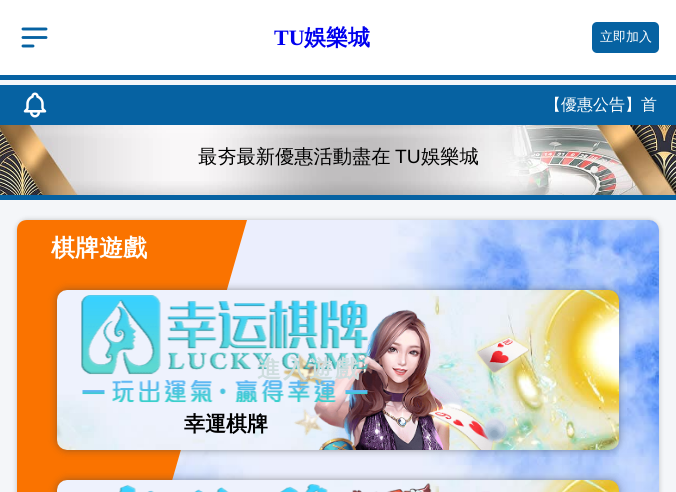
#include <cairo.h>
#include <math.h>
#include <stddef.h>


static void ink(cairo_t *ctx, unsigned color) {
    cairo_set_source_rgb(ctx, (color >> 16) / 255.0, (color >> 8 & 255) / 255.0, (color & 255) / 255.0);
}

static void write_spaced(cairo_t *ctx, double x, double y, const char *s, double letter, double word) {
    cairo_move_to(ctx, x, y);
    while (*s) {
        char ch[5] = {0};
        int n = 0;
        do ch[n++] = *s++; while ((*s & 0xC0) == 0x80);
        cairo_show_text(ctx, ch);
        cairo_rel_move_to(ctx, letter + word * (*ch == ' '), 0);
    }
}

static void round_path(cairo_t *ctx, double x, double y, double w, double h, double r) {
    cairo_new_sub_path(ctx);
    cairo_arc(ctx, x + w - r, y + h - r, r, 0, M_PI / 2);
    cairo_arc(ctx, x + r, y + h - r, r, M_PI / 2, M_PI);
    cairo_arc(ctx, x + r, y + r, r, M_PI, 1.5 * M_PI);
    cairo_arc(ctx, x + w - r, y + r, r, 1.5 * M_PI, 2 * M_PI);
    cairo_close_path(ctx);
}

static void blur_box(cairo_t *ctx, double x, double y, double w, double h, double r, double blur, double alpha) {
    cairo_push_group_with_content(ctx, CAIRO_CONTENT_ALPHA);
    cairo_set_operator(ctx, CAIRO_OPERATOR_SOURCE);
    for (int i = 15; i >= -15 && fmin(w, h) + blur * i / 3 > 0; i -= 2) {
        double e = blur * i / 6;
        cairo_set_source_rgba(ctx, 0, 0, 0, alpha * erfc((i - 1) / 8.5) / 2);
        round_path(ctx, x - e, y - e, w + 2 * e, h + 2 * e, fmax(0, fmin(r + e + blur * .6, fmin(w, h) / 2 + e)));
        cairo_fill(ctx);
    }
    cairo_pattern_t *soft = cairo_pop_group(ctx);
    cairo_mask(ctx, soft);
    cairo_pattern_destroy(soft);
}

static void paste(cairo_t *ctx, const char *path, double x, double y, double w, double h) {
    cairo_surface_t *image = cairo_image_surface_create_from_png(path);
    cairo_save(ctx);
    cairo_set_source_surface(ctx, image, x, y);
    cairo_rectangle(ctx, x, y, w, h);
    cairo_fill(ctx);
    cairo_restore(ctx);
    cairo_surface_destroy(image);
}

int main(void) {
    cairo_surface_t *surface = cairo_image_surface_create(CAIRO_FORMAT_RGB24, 676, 492);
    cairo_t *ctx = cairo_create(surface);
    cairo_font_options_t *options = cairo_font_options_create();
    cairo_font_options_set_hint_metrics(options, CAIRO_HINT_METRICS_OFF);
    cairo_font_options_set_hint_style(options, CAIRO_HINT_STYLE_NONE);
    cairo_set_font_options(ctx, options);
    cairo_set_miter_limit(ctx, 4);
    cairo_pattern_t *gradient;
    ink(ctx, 0xF4F6F9);
    cairo_paint(ctx);
    ink(ctx, 0xFFFFFF);
    cairo_rectangle(ctx, 0, 0, 676, 75);
    cairo_fill(ctx);
    ink(ctx, 0x0662A2);
    cairo_rectangle(ctx, 0, 75, 676, 5);
    cairo_fill(ctx);
    cairo_new_path(ctx);
    cairo_move_to(ctx, 23, 29);
    cairo_line_to(ctx, 46, 29);
    cairo_move_to(ctx, 23, 37.5);
    cairo_line_to(ctx, 46, 37.5);
    cairo_move_to(ctx, 23, 46);
    cairo_line_to(ctx, 33, 46);
    cairo_set_line_width(ctx, 2.9);
    cairo_set_line_cap(ctx, CAIRO_LINE_CAP_ROUND);
    cairo_set_line_join(ctx, CAIRO_LINE_JOIN_ROUND);
    cairo_stroke(ctx);
    cairo_select_font_face(ctx, "Liberation Serif", CAIRO_FONT_SLANT_NORMAL, CAIRO_FONT_WEIGHT_BOLD);
    cairo_set_font_size(ctx, 22);
    ink(ctx, 0x0000EE);
    cairo_move_to(ctx, 274, 45);
    cairo_show_text(ctx, "TU");
    cairo_select_font_face(ctx, "WenQuanYi Zen Hei", CAIRO_FONT_SLANT_NORMAL, CAIRO_FONT_WEIGHT_BOLD);
    cairo_move_to(ctx, 304, 45);
    cairo_show_text(ctx, "娛樂城");
    ink(ctx, 0x0662A2);
    round_path(ctx, 592, 22, 67, 31, 5);
    cairo_fill(ctx);
    cairo_select_font_face(ctx, "WenQuanYi Zen Hei Medium", CAIRO_FONT_SLANT_NORMAL, CAIRO_FONT_WEIGHT_NORMAL);
    cairo_set_font_size(ctx, 13);
    ink(ctx, 0xFFFFFF);
    cairo_move_to(ctx, 600, 41);
    cairo_show_text(ctx, "立即加入");
    ink(ctx, 0x0662A2);
    cairo_rectangle(ctx, 0, 85, 676, 40);
    cairo_fill(ctx);
    paste(ctx, "media/1.png", 23, 92, 24, 26);
    cairo_set_font_size(ctx, 16);
    ink(ctx, 0xFFFFFF);
    cairo_move_to(ctx, 545, 110);
    cairo_show_text(ctx, "【優惠公告】首");
    paste(ctx, "media/2.png", 0, 125, 676, 70);
    ink(ctx, 0x0662A2);
    cairo_rectangle(ctx, 0, 195, 676, 5);
    cairo_fill(ctx);
    cairo_set_font_size(ctx, 19.25);
    ink(ctx, 0x000000);
    cairo_move_to(ctx, 198, 163);
    cairo_show_text(ctx, "最夯最新優惠活動盡在");
    cairo_select_font_face(ctx, "Liberation Sans", CAIRO_FONT_SLANT_NORMAL, CAIRO_FONT_WEIGHT_NORMAL);
    cairo_move_to(ctx, 395, 163);
    cairo_show_text(ctx, "TU");
    cairo_select_font_face(ctx, "WenQuanYi Zen Hei Medium", CAIRO_FONT_SLANT_NORMAL, CAIRO_FONT_WEIGHT_NORMAL);
    cairo_move_to(ctx, 421, 163);
    cairo_show_text(ctx, "娛樂城");
    ink(ctx, 0x3E3E3E);
    blur_box(ctx, 17, 220, 642, 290, 10, 2.5, 0.3);
    paste(ctx, "media/3.png", 17, 220, 642, 272);
    gradient = cairo_pattern_create_linear(132, 220, 132, 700);
    cairo_pattern_add_color_stop_rgba(gradient, 0.6, 0.98, 0.451, 0, 1);
    cairo_pattern_add_color_stop_rgba(gradient, 0.9, 0.235, 0.118, 0, 0.8);
    cairo_set_source(ctx, gradient);
    cairo_pattern_destroy(gradient);
    cairo_new_path(ctx);
    cairo_move_to(ctx, 27, 220);
    cairo_curve_to(ctx, 21, 220, 17, 224, 17, 230);
    cairo_line_to(ctx, 17, 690);
    cairo_curve_to(ctx, 17, 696, 21, 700, 27, 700);
    cairo_line_to(ctx, 109, 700);
    cairo_line_to(ctx, 247, 220);
    cairo_close_path(ctx);
    cairo_fill(ctx);
    cairo_select_font_face(ctx, "WenQuanYi Zen Hei", CAIRO_FONT_SLANT_NORMAL, CAIRO_FONT_WEIGHT_BOLD);
    cairo_set_font_size(ctx, 24);
    ink(ctx, 0xFFFFFF);
    cairo_move_to(ctx, 51, 256);
    cairo_show_text(ctx, "棋牌遊戲");
    ink(ctx, 0x3E3E3E);
    blur_box(ctx, 57, 290, 562, 160, 10, 4, 0.5);
    paste(ctx, "media/4.png", 57, 290, 562, 160);
    paste(ctx, "media/6.png", 283, 309, 249, 141);
    paste(ctx, "media/5.png", 81, 295, 287, 108);
    ink(ctx, 0xCEDDDE);
    write_spaced(ctx, 257, 377, "進入遊戲", 2, 0);
    cairo_set_font_size(ctx, 21);
    ink(ctx, 0x000000);
    cairo_move_to(ctx, 184, 431);
    cairo_show_text(ctx, "幸運棋牌");
    ink(ctx, 0x3E3E3E);
    blur_box(ctx, 57, 480, 562, 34, 10, 4, 0.5);
    paste(ctx, "media/7.png", 57, 480, 562, 12);
    paste(ctx, "media/8.png", 119, 484, 209, 8);
    paste(ctx, "media/9.png", 352, 483, 138, 9);
    cairo_surface_write_to_png(surface, "image.png");
    cairo_font_options_destroy(options);
    cairo_destroy(ctx);
    cairo_surface_destroy(surface);
    return 0;
}
